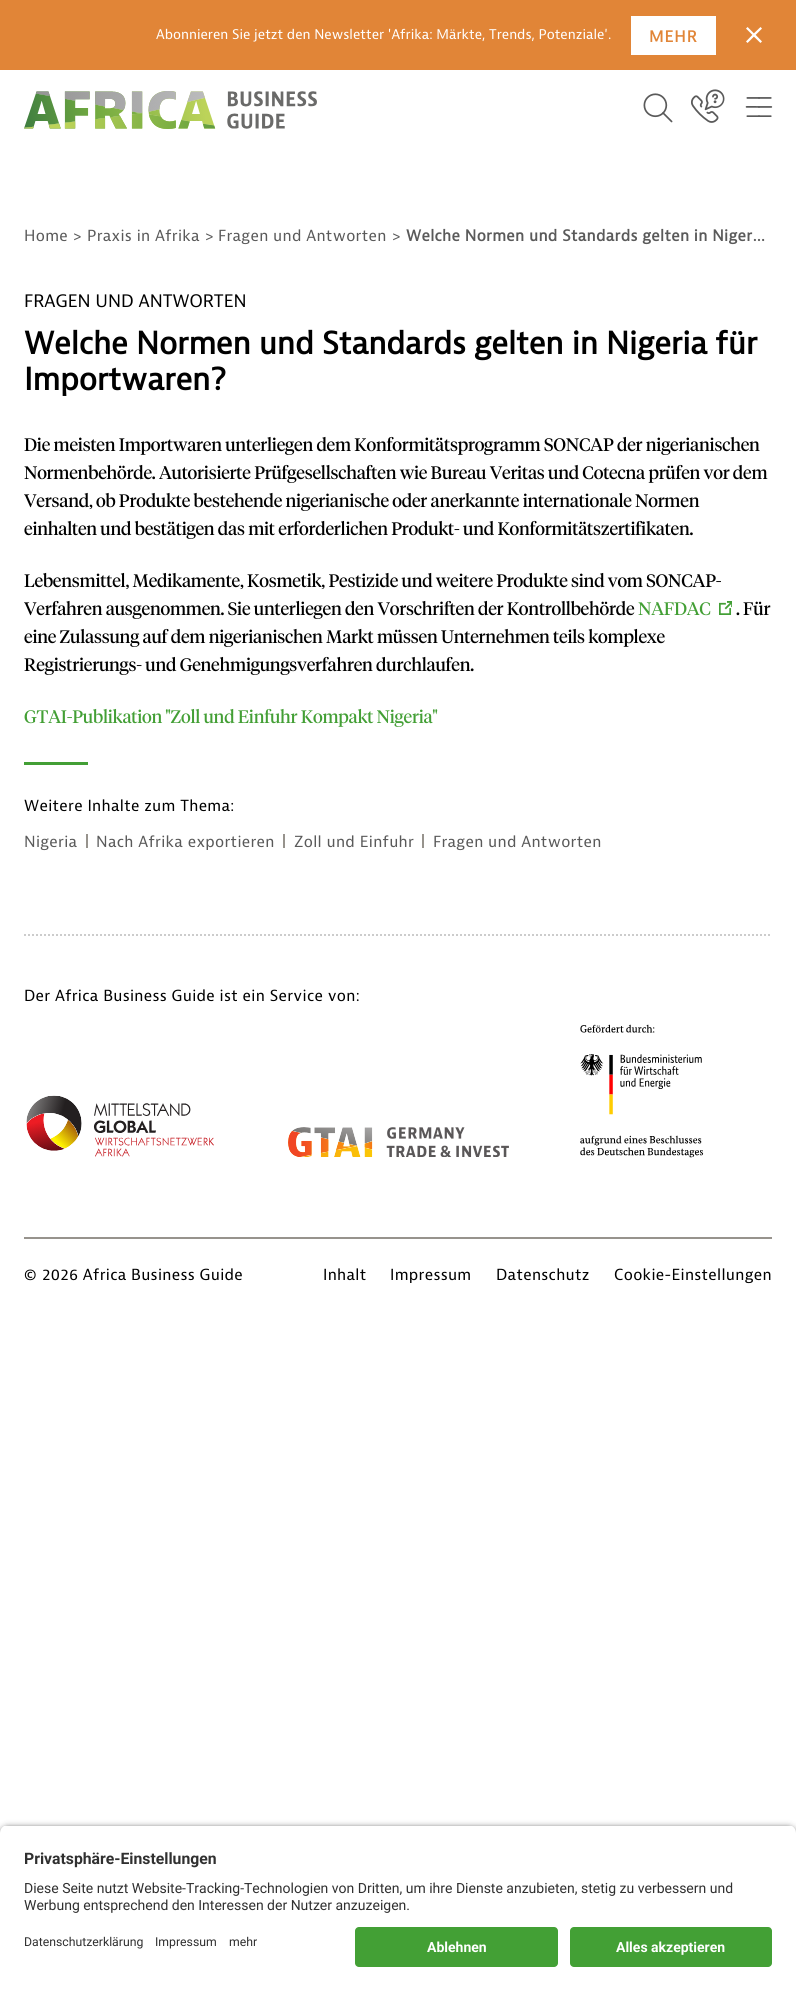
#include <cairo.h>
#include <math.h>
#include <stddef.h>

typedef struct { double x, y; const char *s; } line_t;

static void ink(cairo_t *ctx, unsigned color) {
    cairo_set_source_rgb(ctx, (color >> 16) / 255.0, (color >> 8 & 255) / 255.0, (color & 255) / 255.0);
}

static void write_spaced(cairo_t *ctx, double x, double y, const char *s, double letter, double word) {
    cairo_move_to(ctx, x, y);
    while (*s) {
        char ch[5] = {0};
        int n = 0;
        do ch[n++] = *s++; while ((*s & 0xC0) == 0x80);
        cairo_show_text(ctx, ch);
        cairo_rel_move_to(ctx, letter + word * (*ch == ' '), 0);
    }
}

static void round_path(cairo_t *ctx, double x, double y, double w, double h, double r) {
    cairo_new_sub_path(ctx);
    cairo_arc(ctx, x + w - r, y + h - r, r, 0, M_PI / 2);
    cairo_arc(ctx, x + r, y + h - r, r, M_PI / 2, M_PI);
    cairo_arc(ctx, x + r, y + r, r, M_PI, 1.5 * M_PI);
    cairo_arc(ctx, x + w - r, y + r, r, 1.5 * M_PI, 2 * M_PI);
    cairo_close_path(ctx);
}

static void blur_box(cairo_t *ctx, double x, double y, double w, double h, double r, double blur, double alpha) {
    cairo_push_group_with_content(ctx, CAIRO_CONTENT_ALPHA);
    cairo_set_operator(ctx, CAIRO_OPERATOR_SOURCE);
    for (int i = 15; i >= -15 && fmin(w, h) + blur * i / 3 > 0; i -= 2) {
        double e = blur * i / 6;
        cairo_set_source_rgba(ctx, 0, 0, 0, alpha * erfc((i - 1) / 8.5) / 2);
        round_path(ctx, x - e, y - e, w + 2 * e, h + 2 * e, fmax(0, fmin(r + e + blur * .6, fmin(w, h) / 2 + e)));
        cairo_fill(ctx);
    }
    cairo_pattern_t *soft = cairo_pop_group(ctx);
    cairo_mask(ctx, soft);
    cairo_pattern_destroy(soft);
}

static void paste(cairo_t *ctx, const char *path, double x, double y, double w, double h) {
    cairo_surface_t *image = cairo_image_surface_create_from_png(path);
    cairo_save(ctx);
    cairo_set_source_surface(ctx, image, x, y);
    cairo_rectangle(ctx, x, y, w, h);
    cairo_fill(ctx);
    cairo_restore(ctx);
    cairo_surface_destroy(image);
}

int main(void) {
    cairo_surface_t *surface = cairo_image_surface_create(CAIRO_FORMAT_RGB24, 796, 1991);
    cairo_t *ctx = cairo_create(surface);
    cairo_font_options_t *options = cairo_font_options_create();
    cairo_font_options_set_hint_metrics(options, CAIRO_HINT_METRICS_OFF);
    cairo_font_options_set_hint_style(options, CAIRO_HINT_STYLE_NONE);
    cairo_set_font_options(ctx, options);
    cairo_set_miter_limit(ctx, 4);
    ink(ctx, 0xFFFFFF);
    cairo_paint(ctx);
    ink(ctx, 0xE18537);
    cairo_rectangle(ctx, 0, 0, 796, 70);
    cairo_fill(ctx);
    cairo_select_font_face(ctx, "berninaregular", CAIRO_FONT_SLANT_NORMAL, CAIRO_FONT_WEIGHT_NORMAL);
    cairo_set_font_size(ctx, 14);
    ink(ctx, 0xFFFFFF);
    cairo_move_to(ctx, 156, 39);
    cairo_show_text(ctx, "Abonnieren Sie jetzt den Newsletter 'Afrika: Märkte, Trends, Potenziale'.");
    cairo_rectangle(ctx, 631, 16, 85, 39);
    cairo_fill(ctx);
    cairo_select_font_face(ctx, "berninaregular", CAIRO_FONT_SLANT_NORMAL, CAIRO_FONT_WEIGHT_BOLD);
    cairo_set_font_size(ctx, 16);
    ink(ctx, 0xE18537);
    write_spaced(ctx, 649, 42, "MEHR", 1, 0);
    paste(ctx, "media/1.png", 746, 27, 16, 16);
    paste(ctx, "media/2.png", 24, 91, 293, 38);
    paste(ctx, "media/3.png", 643, 93, 30, 30);
    paste(ctx, "media/4.png", 691, 89, 34, 34);
    paste(ctx, "media/5.png", 745, 97, 28, 20);
    cairo_select_font_face(ctx, "berninaregular", CAIRO_FONT_SLANT_NORMAL, CAIRO_FONT_WEIGHT_NORMAL);
    ink(ctx, 0x5A5A5A);
    {
        static const line_t items[] = {
            {24, 241, "Home"},
            {72, 241, ">"},
            {87, 241, "Praxis in Afrika"},
            {204, 241, ">"},
            {218, 241, "Fragen und Antworten"},
            {391, 241, ">"},
        };
        for (size_t i = 0; i < sizeof items / sizeof *items; i++) {
            write_spaced(ctx, items[i].x, items[i].y, items[i].s, 0.3, 0);
        }
    }
    cairo_select_font_face(ctx, "berninaregular", CAIRO_FONT_SLANT_NORMAL, CAIRO_FONT_WEIGHT_BOLD);
    write_spaced(ctx, 406, 241, "Welche Normen und Standards gelten in Niger…", 0.3, 0);
    cairo_select_font_face(ctx, "berninaregular", CAIRO_FONT_SLANT_NORMAL, CAIRO_FONT_WEIGHT_NORMAL);
    cairo_set_font_size(ctx, 18);
    ink(ctx, 0x000000);
    cairo_move_to(ctx, 24, 307);
    cairo_show_text(ctx, "FRAGEN UND ANTWORTEN");
    cairo_select_font_face(ctx, "berninaregular", CAIRO_FONT_SLANT_NORMAL, CAIRO_FONT_WEIGHT_BOLD);
    cairo_set_font_size(ctx, 32);
    write_spaced(ctx, 24, 354, "Welche Normen und Standards gelten in Nigeria für", -0.2, 0);
    write_spaced(ctx, 24, 390, "Importwaren?", -0.2, 0);
    cairo_select_font_face(ctx, "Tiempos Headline", CAIRO_FONT_SLANT_NORMAL, CAIRO_FONT_WEIGHT_NORMAL);
    cairo_set_font_size(ctx, 18);
    {
        static const line_t items[] = {
            {24, 451, "Die meisten Importwaren unterliegen dem Konformitätsprogramm SONCAP der nigerianischen"},
            {24, 479, "Normenbehörde. Autorisierte Prüfgesellschaften wie Bureau Veritas und Cotecna prüfen vor dem"},
            {24, 507, "Versand, ob Produkte bestehende nigerianische oder anerkannte internationale Normen"},
            {24, 535, "einhalten und bestätigen das mit erforderlichen Produkt- und Konformitätszertifikaten."},
            {24, 587, "Lebensmittel, Medikamente, Kosmetik, Pestizide und weitere Produkte sind vom SONCAP-"},
            {24, 615, "Verfahren ausgenommen. Sie unterliegen den Vorschriften der Kontrollbehörde"},
        };
        for (size_t i = 0; i < sizeof items / sizeof *items; i++) {
            write_spaced(ctx, items[i].x, items[i].y, items[i].s, -0.2, 0);
        }
    }
    ink(ctx, 0x439F35);
    write_spaced(ctx, 638, 615, "NAFDAC", -0.2, 0);
    paste(ctx, "media/6.png", 719, 601, 13, 14);
    ink(ctx, 0x000000);
    {
        static const line_t items[] = {
            {736, 615, ". Für"},
            {24, 643, "eine Zulassung auf dem nigerianischen Markt müssen Unternehmen teils komplexe"},
            {24, 671, "Registrierungs- und Genehmigungsverfahren durchlaufen."},
        };
        for (size_t i = 0; i < sizeof items / sizeof *items; i++) {
            write_spaced(ctx, items[i].x, items[i].y, items[i].s, -0.2, 0);
        }
    }
    ink(ctx, 0x439F35);
    write_spaced(ctx, 24, 723, "GTAI-Publikation \"Zoll und Einfuhr Kompakt Nigeria\"", -0.2, 0);
    cairo_rectangle(ctx, 24, 762, 64, 3);
    cairo_fill(ctx);
    cairo_select_font_face(ctx, "berninaregular", CAIRO_FONT_SLANT_NORMAL, CAIRO_FONT_WEIGHT_NORMAL);
    cairo_set_font_size(ctx, 16);
    ink(ctx, 0x000000);
    write_spaced(ctx, 24, 811, "Weitere Inhalte zum Thema:", 0.3, 0);
    ink(ctx, 0x5A5A5A);
    write_spaced(ctx, 24, 847, "Nigeria", 0.3, 0);
    ink(ctx, 0x97938D);
    cairo_rectangle(ctx, 86, 834, 2, 14);
    cairo_fill(ctx);
    ink(ctx, 0x5A5A5A);
    write_spaced(ctx, 96, 847, "Nach Afrika exportieren", 0.3, 0);
    ink(ctx, 0x97938D);
    cairo_rectangle(ctx, 283, 834, 2, 14);
    cairo_fill(ctx);
    ink(ctx, 0x5A5A5A);
    write_spaced(ctx, 294, 847, "Zoll und Einfuhr", 0.3, 0);
    ink(ctx, 0x97938D);
    cairo_rectangle(ctx, 422, 834, 2, 14);
    cairo_fill(ctx);
    ink(ctx, 0x5A5A5A);
    write_spaced(ctx, 433, 847, "Fragen und Antworten", 0.3, 0);
    cairo_new_path(ctx);
    cairo_move_to(ctx, 24, 935);
    cairo_line_to(ctx, 772, 935);
    ink(ctx, 0xCCCCCC);
    cairo_set_dash(ctx, (double[]){2, 2}, 2, 0);
    cairo_stroke(ctx);
    ink(ctx, 0x000000);
    write_spaced(ctx, 24, 1001, "Der Africa Business Guide ist ein Service von:", 0.3, 0);
    ink(ctx, 0x97938D);
    cairo_rectangle(ctx, 24, 1237, 748, 2);
    cairo_fill(ctx);
    paste(ctx, "media/7.png", 26, 1095, 188, 62);
    paste(ctx, "media/8.png", 288, 1127, 221, 30);
    paste(ctx, "media/9.png", 580, 1024, 124, 134);
    ink(ctx, 0x000000);
    {
        static const line_t items[] = {
            {24, 1280, "© 2026 Africa Business Guide"},
            {323, 1280, "Inhalt"},
            {390, 1280, "Impressum"},
            {496, 1280, "Datenschutz"},
            {614, 1280, "Cookie-Einstellungen"},
        };
        for (size_t i = 0; i < sizeof items / sizeof *items; i++) {
            write_spaced(ctx, items[i].x, items[i].y, items[i].s, 0.3, 0);
        }
    }
    ink(ctx, 0x000000);
    blur_box(ctx, 0, 1828, 796, 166, 8, 3.5, 0.8);
    cairo_save(ctx);
    cairo_new_path(ctx);
    cairo_move_to(ctx, 8, 1825);
    cairo_line_to(ctx, 788, 1825);
    cairo_curve_to(ctx, 792.5, 1825, 796, 1828.5, 796, 1833);
    cairo_line_to(ctx, 796, 1919);
    cairo_line_to(ctx, 0, 1919);
    cairo_line_to(ctx, 0, 1833);
    cairo_curve_to(ctx, 0, 1828.5, 3.5, 1825, 8, 1825);
    cairo_close_path(ctx);
    cairo_clip(ctx);
    ink(ctx, 0xFFFFFF);
    cairo_rectangle(ctx, 0, 1826, 796, 93);
    cairo_fill(ctx);
    cairo_restore(ctx);
    cairo_select_font_face(ctx, "Roboto", CAIRO_FONT_SLANT_NORMAL, CAIRO_FONT_WEIGHT_BOLD);
    cairo_set_font_size(ctx, 15.75);
    ink(ctx, 0x303030);
    cairo_move_to(ctx, 24, 1864);
    cairo_show_text(ctx, "Privatsphäre-Einstellungen");
    cairo_select_font_face(ctx, "Roboto", CAIRO_FONT_SLANT_NORMAL, CAIRO_FONT_WEIGHT_NORMAL);
    cairo_set_font_size(ctx, 14);
    cairo_move_to(ctx, 24, 1893);
    cairo_show_text(ctx, "Diese Seite nutzt Website-Tracking-Technologien von Dritten, um ihre Dienste anzubieten, stetig zu verbessern und");
    cairo_move_to(ctx, 24, 1910);
    cairo_show_text(ctx, "Werbung entsprechend den Interessen der Nutzer anzuzeigen.");
    ink(ctx, 0xFFFFFF);
    cairo_rectangle(ctx, 0, 1919, 796, 72);
    cairo_fill(ctx);
    cairo_set_font_size(ctx, 12.25);
    ink(ctx, 0x303030);
    {
        static const line_t items[] = {
            {24, 1946, "Datenschutzerklärung"},
            {155, 1946, "Impressum"},
            {229, 1946, "mehr"},
        };
        for (size_t i = 0; i < sizeof items / sizeof *items; i++) {
            cairo_move_to(ctx, items[i].x, items[i].y);
            cairo_show_text(ctx, items[i].s);
        }
    }
    ink(ctx, 0x43A035);
    round_path(ctx, 355, 1927, 203, 40, 4);
    cairo_fill(ctx);
    cairo_select_font_face(ctx, "Roboto", CAIRO_FONT_SLANT_NORMAL, CAIRO_FONT_WEIGHT_BOLD);
    cairo_set_font_size(ctx, 14);
    ink(ctx, 0xFFFFFF);
    cairo_move_to(ctx, 427, 1952);
    cairo_show_text(ctx, "Ablehnen");
    ink(ctx, 0x43A035);
    round_path(ctx, 570, 1927, 202, 40, 4);
    cairo_fill(ctx);
    ink(ctx, 0xFFFFFF);
    cairo_move_to(ctx, 616, 1952);
    cairo_show_text(ctx, "Alles akzeptieren");
    cairo_surface_write_to_png(surface, "image.png");
    cairo_font_options_destroy(options);
    cairo_destroy(ctx);
    cairo_surface_destroy(surface);
    return 0;
}
